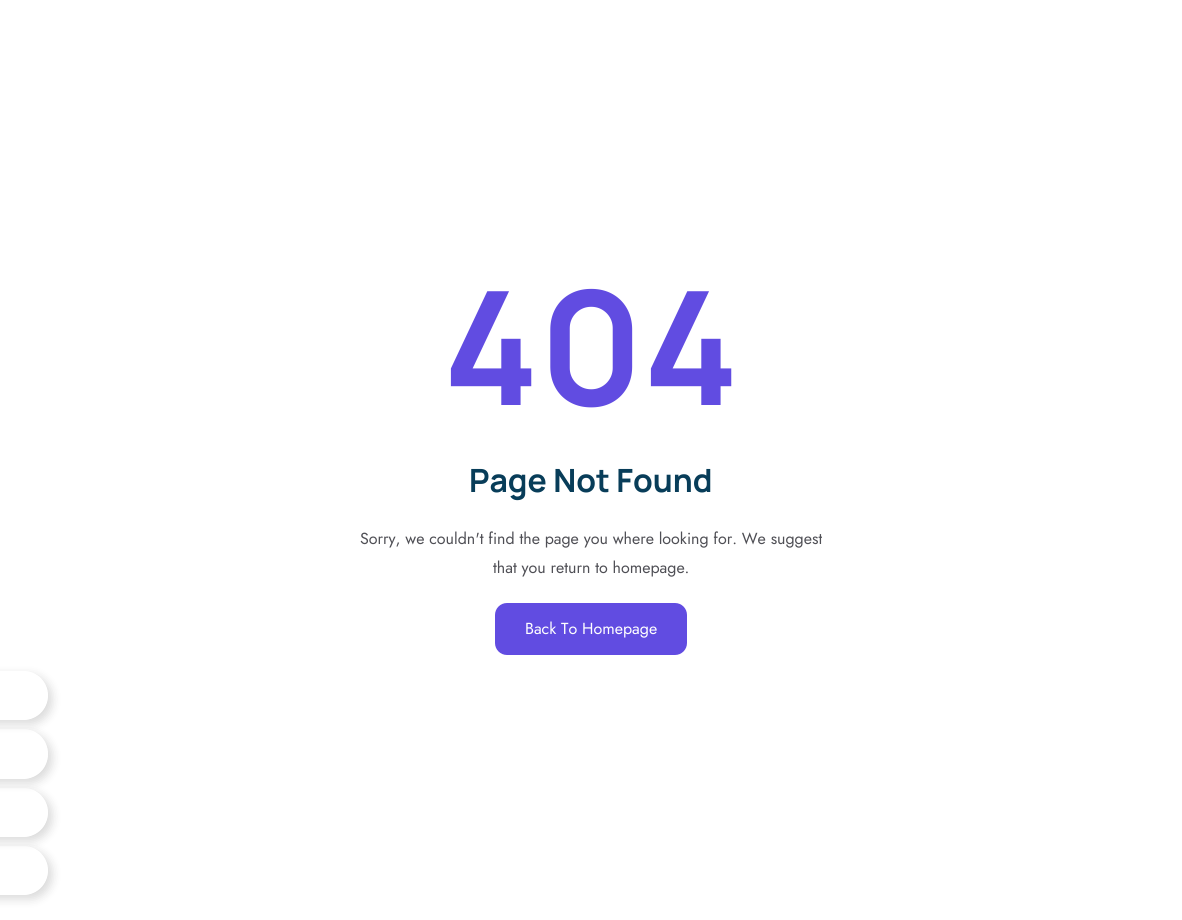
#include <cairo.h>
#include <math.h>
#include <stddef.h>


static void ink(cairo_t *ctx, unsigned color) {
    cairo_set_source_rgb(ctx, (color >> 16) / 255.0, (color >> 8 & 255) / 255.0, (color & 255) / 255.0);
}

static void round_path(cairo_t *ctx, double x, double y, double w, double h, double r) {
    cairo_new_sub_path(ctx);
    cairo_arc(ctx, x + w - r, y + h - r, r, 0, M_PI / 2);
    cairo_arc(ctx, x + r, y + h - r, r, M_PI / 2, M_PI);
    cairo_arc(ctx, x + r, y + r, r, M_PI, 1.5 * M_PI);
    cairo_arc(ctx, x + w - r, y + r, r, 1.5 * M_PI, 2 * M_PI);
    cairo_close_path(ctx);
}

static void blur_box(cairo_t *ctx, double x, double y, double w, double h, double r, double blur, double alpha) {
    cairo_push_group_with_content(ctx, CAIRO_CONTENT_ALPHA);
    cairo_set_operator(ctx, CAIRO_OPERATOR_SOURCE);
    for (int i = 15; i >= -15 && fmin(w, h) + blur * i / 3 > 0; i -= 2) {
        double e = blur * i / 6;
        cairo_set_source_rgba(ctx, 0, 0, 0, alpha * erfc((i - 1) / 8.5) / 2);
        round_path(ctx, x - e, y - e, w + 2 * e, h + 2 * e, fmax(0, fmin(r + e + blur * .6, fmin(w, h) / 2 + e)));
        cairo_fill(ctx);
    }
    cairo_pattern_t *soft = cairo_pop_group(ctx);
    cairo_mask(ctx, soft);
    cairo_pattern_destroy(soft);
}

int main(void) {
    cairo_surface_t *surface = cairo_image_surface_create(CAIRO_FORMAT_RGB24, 1182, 920);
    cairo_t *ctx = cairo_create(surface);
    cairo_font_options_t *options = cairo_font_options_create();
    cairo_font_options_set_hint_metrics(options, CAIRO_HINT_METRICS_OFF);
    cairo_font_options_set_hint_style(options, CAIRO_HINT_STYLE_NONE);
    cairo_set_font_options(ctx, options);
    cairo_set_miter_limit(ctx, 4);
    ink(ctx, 0xFFFFFF);
    cairo_paint(ctx);
    cairo_select_font_face(ctx, "Manrope", CAIRO_FONT_SLANT_NORMAL, CAIRO_FONT_WEIGHT_BOLD);
    cairo_set_font_size(ctx, 158);
    ink(ctx, 0x614CE1);
    cairo_move_to(ctx, 443, 405);
    cairo_show_text(ctx, "404");
    cairo_set_font_size(ctx, 32);
    ink(ctx, 0x083D59);
    cairo_move_to(ctx, 469, 492);
    cairo_show_text(ctx, "Page Not Found");
    cairo_select_font_face(ctx, "Jost", CAIRO_FONT_SLANT_NORMAL, CAIRO_FONT_WEIGHT_NORMAL);
    cairo_set_font_size(ctx, 16);
    ink(ctx, 0x4F4F55);
    cairo_move_to(ctx, 360, 544);
    cairo_show_text(ctx, "Sorry, we couldn't find the page you where looking for. We suggest");
    cairo_move_to(ctx, 493, 573);
    cairo_show_text(ctx, "that you return to homepage.");
    ink(ctx, 0x614CE1);
    round_path(ctx, 495, 603, 192, 52, 12);
    cairo_fill(ctx);
    ink(ctx, 0xFFFFFF);
    cairo_move_to(ctx, 525, 634);
    cairo_show_text(ctx, "Back To Homepage");
    cairo_save(ctx);
    cairo_set_fill_rule(ctx, CAIRO_FILL_RULE_EVEN_ODD);
    cairo_new_path(ctx);
    cairo_move_to(ctx, 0, 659);
    cairo_line_to(ctx, 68, 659);
    cairo_line_to(ctx, 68, 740);
    cairo_line_to(ctx, 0, 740);
    cairo_close_path(ctx);
    cairo_move_to(ctx, -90, 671);
    cairo_line_to(ctx, 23.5, 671);
    cairo_curve_to(ctx, 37, 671, 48, 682, 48, 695.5);
    cairo_curve_to(ctx, 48, 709, 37, 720, 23.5, 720);
    cairo_line_to(ctx, -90, 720);
    cairo_close_path(ctx);
    cairo_clip(ctx);
    ink(ctx, 0x000000);
    blur_box(ctx, -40, 675, 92, 49, 24.5, 5, 0.15);
    cairo_restore(ctx);
    cairo_save(ctx);
    cairo_set_fill_rule(ctx, CAIRO_FILL_RULE_EVEN_ODD);
    cairo_new_path(ctx);
    cairo_move_to(ctx, 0, 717);
    cairo_line_to(ctx, 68, 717);
    cairo_line_to(ctx, 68, 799);
    cairo_line_to(ctx, 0, 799);
    cairo_close_path(ctx);
    cairo_move_to(ctx, -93, 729);
    cairo_line_to(ctx, 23, 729);
    cairo_curve_to(ctx, 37, 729, 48, 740, 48, 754);
    cairo_curve_to(ctx, 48, 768, 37, 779, 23, 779);
    cairo_line_to(ctx, -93, 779);
    cairo_close_path(ctx);
    cairo_clip(ctx);
    ink(ctx, 0x000000);
    blur_box(ctx, -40, 733, 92, 50, 25, 5, 0.15);
    cairo_restore(ctx);
    cairo_save(ctx);
    cairo_set_fill_rule(ctx, CAIRO_FILL_RULE_EVEN_ODD);
    cairo_new_path(ctx);
    cairo_move_to(ctx, 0, 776);
    cairo_line_to(ctx, 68, 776);
    cairo_line_to(ctx, 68, 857);
    cairo_line_to(ctx, 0, 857);
    cairo_close_path(ctx);
    cairo_move_to(ctx, -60, 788);
    cairo_line_to(ctx, 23.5, 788);
    cairo_curve_to(ctx, 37, 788, 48, 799, 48, 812.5);
    cairo_curve_to(ctx, 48, 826, 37, 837, 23.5, 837);
    cairo_line_to(ctx, -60, 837);
    cairo_close_path(ctx);
    cairo_clip(ctx);
    ink(ctx, 0x000000);
    blur_box(ctx, -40, 792, 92, 49, 24.5, 5, 0.15);
    cairo_restore(ctx);
    cairo_save(ctx);
    cairo_set_fill_rule(ctx, CAIRO_FILL_RULE_EVEN_ODD);
    cairo_new_path(ctx);
    cairo_move_to(ctx, 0, 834);
    cairo_line_to(ctx, 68, 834);
    cairo_line_to(ctx, 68, 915);
    cairo_line_to(ctx, 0, 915);
    cairo_close_path(ctx);
    cairo_move_to(ctx, -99, 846);
    cairo_line_to(ctx, 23.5, 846);
    cairo_curve_to(ctx, 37, 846, 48, 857, 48, 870.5);
    cairo_curve_to(ctx, 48, 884, 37, 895, 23.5, 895);
    cairo_line_to(ctx, -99, 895);
    cairo_close_path(ctx);
    cairo_clip(ctx);
    ink(ctx, 0x000000);
    blur_box(ctx, -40, 850, 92, 49, 24.5, 5, 0.15);
    cairo_restore(ctx);
    cairo_surface_write_to_png(surface, "image.png");
    cairo_font_options_destroy(options);
    cairo_destroy(ctx);
    cairo_surface_destroy(surface);
    return 0;
}
